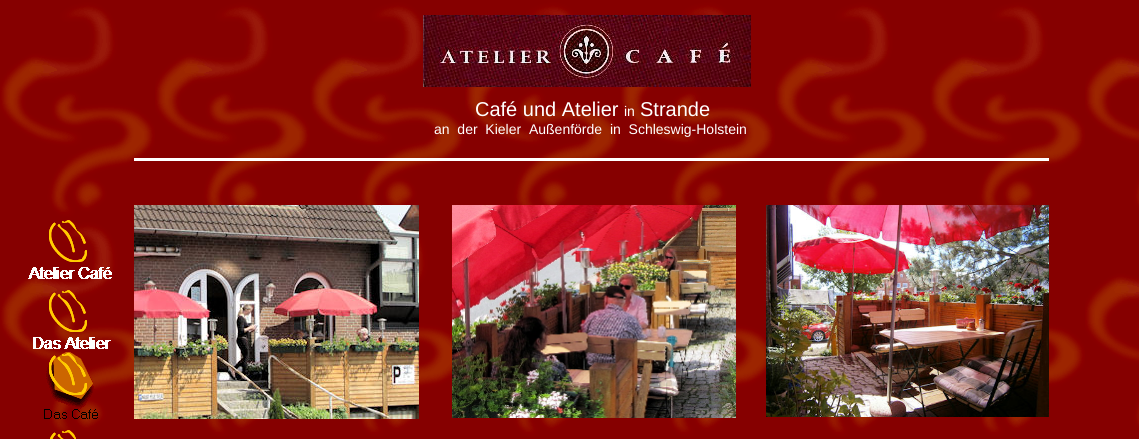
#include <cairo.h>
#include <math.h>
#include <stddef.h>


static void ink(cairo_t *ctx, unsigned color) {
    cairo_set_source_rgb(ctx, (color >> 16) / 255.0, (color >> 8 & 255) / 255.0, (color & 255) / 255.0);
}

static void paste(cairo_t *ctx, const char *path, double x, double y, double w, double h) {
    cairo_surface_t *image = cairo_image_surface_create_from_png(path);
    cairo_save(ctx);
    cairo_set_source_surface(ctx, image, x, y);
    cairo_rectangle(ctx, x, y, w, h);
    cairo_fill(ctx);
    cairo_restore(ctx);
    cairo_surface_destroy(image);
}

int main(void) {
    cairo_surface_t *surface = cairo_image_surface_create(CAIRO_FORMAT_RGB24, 1139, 439);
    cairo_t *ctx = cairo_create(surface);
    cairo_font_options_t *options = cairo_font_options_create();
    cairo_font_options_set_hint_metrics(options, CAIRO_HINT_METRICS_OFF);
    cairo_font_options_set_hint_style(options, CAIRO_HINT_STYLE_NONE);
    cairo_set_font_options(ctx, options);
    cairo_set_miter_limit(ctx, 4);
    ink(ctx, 0xFFFFFF);
    cairo_paint(ctx);
    paste(ctx, "media/1.png", 0, 0, 1139, 439);
    paste(ctx, "media/2.png", 423, 15, 328, 72);
    cairo_select_font_face(ctx, "Liberation Sans", CAIRO_FONT_SLANT_NORMAL, CAIRO_FONT_WEIGHT_NORMAL);
    cairo_set_font_size(ctx, 20);
    ink(ctx, 0xFFFFFF);
    cairo_move_to(ctx, 475, 116);
    cairo_show_text(ctx, "Café und Atelier");
    cairo_set_font_size(ctx, 14);
    cairo_move_to(ctx, 624, 116);
    cairo_show_text(ctx, "in");
    cairo_set_font_size(ctx, 20);
    cairo_move_to(ctx, 640, 116);
    cairo_show_text(ctx, "Strande");
    cairo_set_font_size(ctx, 14);
    cairo_move_to(ctx, 434, 134);
    cairo_show_text(ctx, "an  der  Kieler  Außenförde  in  Schleswig-Holstein");
    cairo_rectangle(ctx, 134, 158, 915, 3);
    cairo_fill(ctx);
    paste(ctx, "media/3.png", 134, 205, 285, 214);
    paste(ctx, "media/4.png", 452, 205, 284, 213);
    paste(ctx, "media/5.png", 766, 205, 283, 212);
    paste(ctx, "media/6.png", 28, 220, 84, 59);
    paste(ctx, "media/7.png", 33, 290, 78, 59);
    paste(ctx, "media/8.png", 44, 352, 54, 67);
    paste(ctx, "media/9.png", 50, 430, 26, 9);
    cairo_surface_write_to_png(surface, "image.png");
    cairo_font_options_destroy(options);
    cairo_destroy(ctx);
    cairo_surface_destroy(surface);
    return 0;
}
